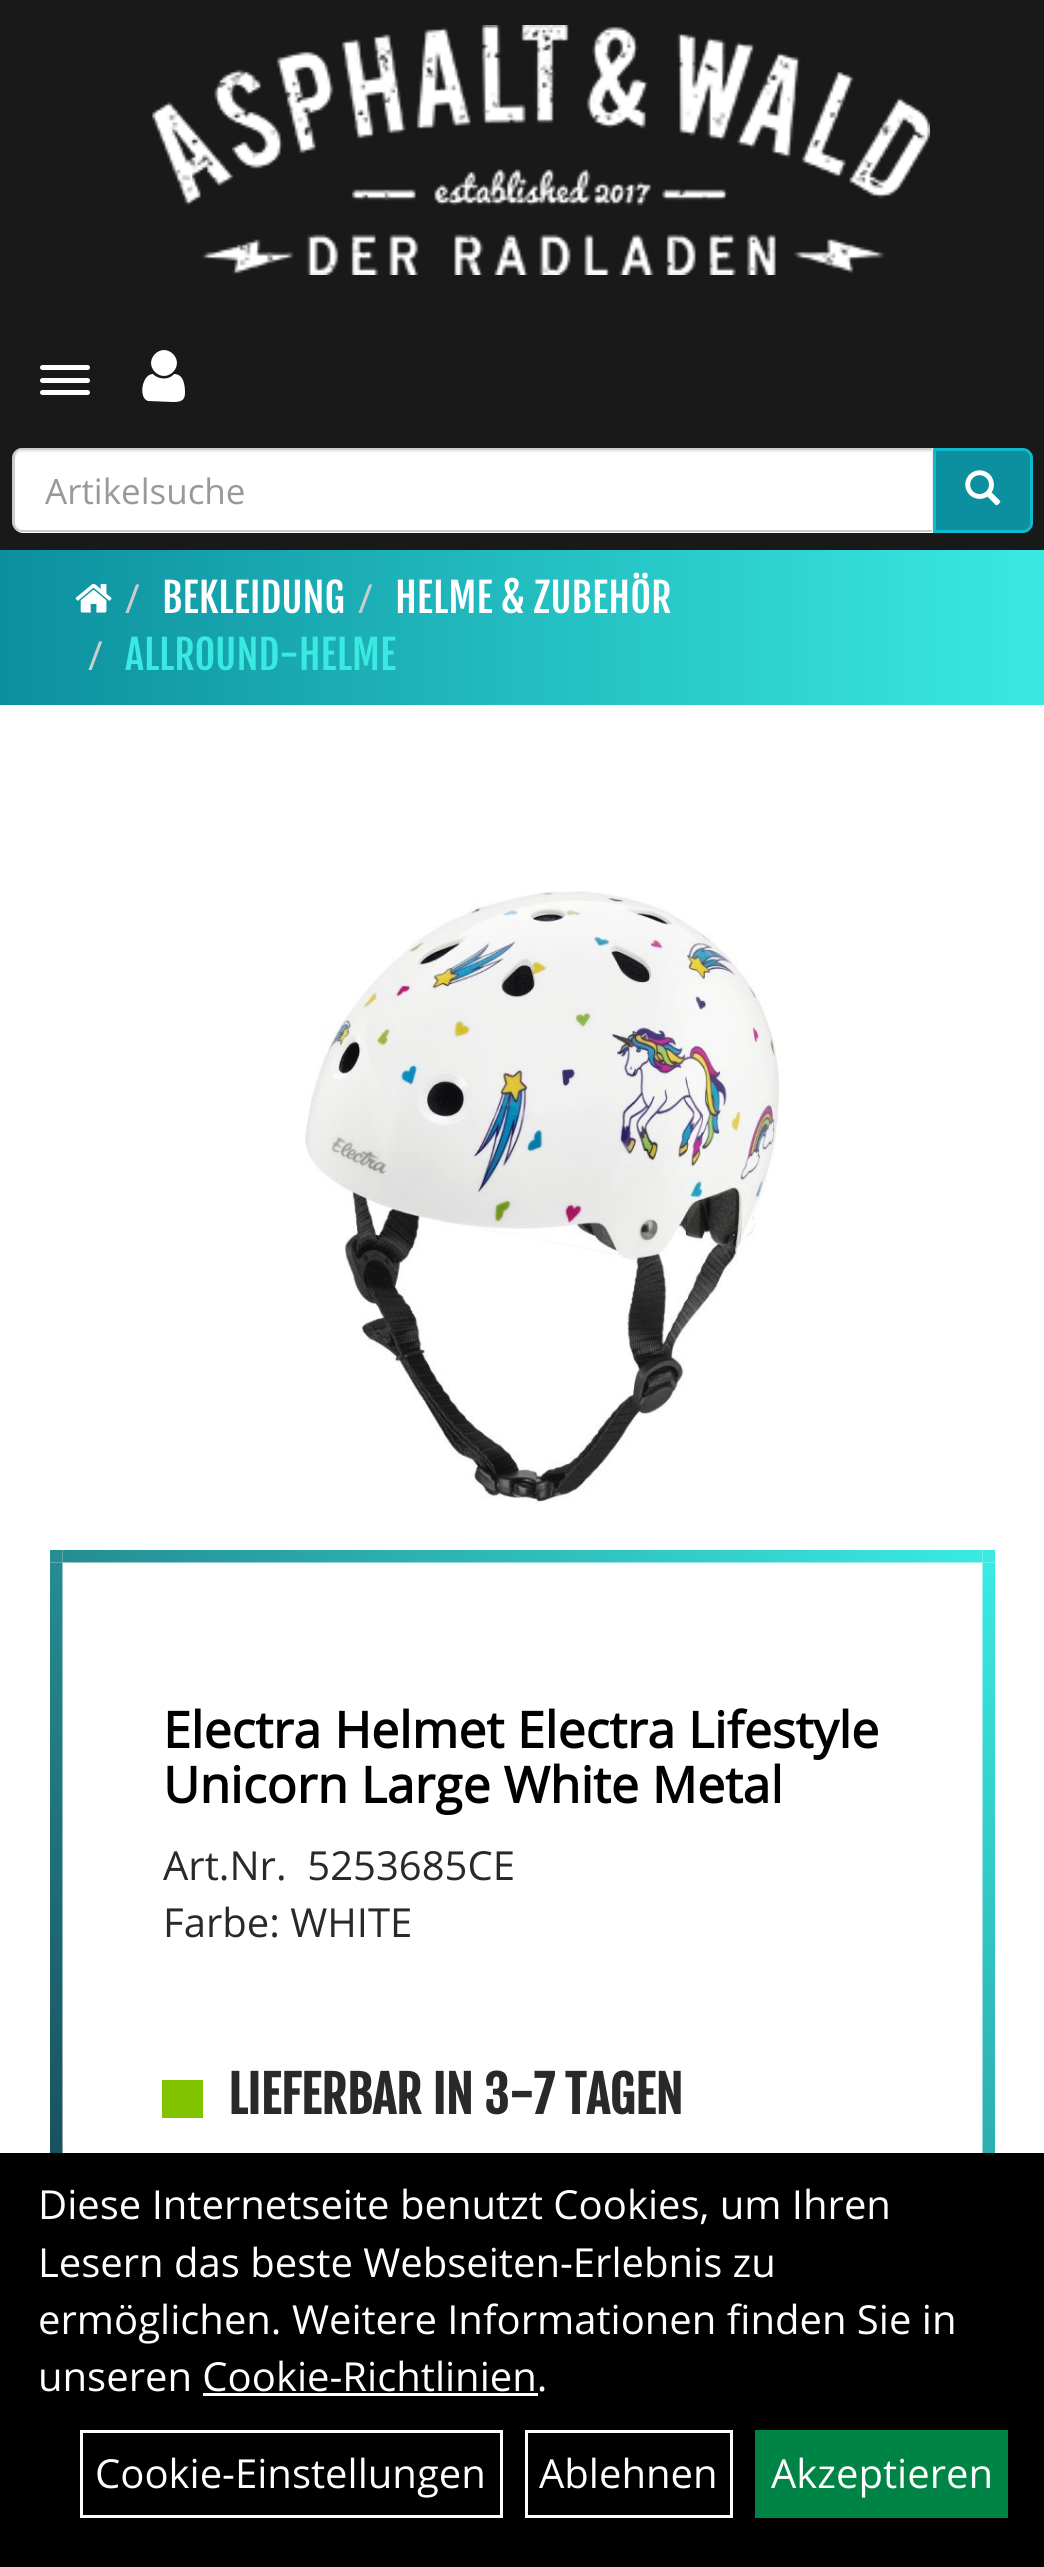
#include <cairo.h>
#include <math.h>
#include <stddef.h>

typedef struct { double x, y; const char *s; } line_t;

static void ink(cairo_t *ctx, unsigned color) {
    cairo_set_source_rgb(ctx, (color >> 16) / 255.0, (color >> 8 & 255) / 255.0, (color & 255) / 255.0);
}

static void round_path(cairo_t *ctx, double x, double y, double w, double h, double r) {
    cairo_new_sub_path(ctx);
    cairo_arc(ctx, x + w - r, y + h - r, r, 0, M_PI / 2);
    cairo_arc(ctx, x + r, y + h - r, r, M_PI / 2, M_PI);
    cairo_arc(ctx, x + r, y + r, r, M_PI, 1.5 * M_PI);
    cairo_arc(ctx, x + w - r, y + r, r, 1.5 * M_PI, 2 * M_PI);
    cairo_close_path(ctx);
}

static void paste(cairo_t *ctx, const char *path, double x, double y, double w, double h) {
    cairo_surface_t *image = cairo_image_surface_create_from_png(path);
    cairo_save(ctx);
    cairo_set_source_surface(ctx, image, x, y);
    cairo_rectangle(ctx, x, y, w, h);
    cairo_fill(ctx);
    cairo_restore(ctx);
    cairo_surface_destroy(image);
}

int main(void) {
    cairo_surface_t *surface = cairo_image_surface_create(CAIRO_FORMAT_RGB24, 1044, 2567);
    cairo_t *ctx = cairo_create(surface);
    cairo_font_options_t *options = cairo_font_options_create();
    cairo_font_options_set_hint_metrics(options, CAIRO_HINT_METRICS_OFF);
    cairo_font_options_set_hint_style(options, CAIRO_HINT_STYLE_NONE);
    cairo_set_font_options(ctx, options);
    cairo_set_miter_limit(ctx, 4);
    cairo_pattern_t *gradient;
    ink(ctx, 0xFFFFFF);
    cairo_paint(ctx);
    ink(ctx, 0x1A1919);
    cairo_rectangle(ctx, 0, 0, 1044, 550);
    cairo_fill(ctx);
    paste(ctx, "media/1.png", 152, 25, 778, 250);
    ink(ctx, 0xFFFFFF);
    round_path(ctx, 40, 365, 50, 5, 2.5);
    cairo_fill(ctx);
    round_path(ctx, 40, 378, 50, 5, 2.5);
    cairo_fill(ctx);
    round_path(ctx, 40, 390, 50, 5, 2.5);
    cairo_fill(ctx);
    cairo_new_path(ctx);
    cairo_move_to(ctx, 185, 393);
    cairo_curve_to(ctx, 185, 401, 180, 402, 173, 402);
    cairo_line_to(ctx, 148, 401);
    cairo_curve_to(ctx, 138, 398, 142, 374, 153, 374);
    cairo_curve_to(ctx, 159, 380, 169, 380, 174, 374);
    cairo_curve_to(ctx, 184, 374, 185, 386, 185, 393);
    cairo_close_path(ctx);
    cairo_move_to(ctx, 173, 354);
    cairo_curve_to(ctx, 185, 366, 167, 384, 155, 372);
    cairo_curve_to(ctx, 143, 360, 161, 342, 173, 354);
    cairo_close_path(ctx);
    cairo_fill(ctx);
    cairo_new_path(ctx);
    cairo_move_to(ctx, 23, 448);
    cairo_line_to(ctx, 933, 448);
    cairo_line_to(ctx, 933, 533);
    cairo_line_to(ctx, 23, 533);
    cairo_curve_to(ctx, 17.5, 533, 13, 528.5, 13, 523);
    cairo_line_to(ctx, 13, 458);
    cairo_curve_to(ctx, 13, 452.5, 17.5, 448, 23, 448);
    cairo_close_path(ctx);
    cairo_fill(ctx);
    ink(ctx, 0xECECEC);
    cairo_new_path(ctx);
    cairo_move_to(ctx, 22, 452);
    cairo_line_to(ctx, 932, 452);
    cairo_line_to(ctx, 932, 530);
    cairo_line_to(ctx, 933, 530);
    cairo_line_to(ctx, 933, 450);
    cairo_line_to(ctx, 23, 450);
    cairo_curve_to(ctx, 19, 450, 15, 454, 15, 458);
    cairo_line_to(ctx, 15, 460);
    cairo_curve_to(ctx, 15, 456, 18, 452, 22, 452);
    cairo_close_path(ctx);
    cairo_fill(ctx);
    ink(ctx, 0xCCCCCC);
    cairo_set_fill_rule(ctx, CAIRO_FILL_RULE_EVEN_ODD);
    cairo_new_path(ctx);
    cairo_move_to(ctx, 22, 448);
    cairo_line_to(ctx, 932, 448);
    cairo_line_to(ctx, 932, 532);
    cairo_line_to(ctx, 22, 532);
    cairo_curve_to(ctx, 17, 532, 12, 528, 12, 522);
    cairo_line_to(ctx, 12, 458);
    cairo_curve_to(ctx, 12, 452, 17, 448, 22, 448);
    cairo_close_path(ctx);
    cairo_move_to(ctx, 22, 450);
    cairo_line_to(ctx, 932, 450);
    cairo_line_to(ctx, 932, 530);
    cairo_line_to(ctx, 22, 530);
    cairo_curve_to(ctx, 18, 530, 15, 527, 15, 522);
    cairo_line_to(ctx, 15, 458);
    cairo_curve_to(ctx, 15, 453, 18, 450, 22, 450);
    cairo_close_path(ctx);
    cairo_fill(ctx);
    cairo_select_font_face(ctx, "Open Sans", CAIRO_FONT_SLANT_NORMAL, CAIRO_FONT_WEIGHT_NORMAL);
    cairo_set_font_size(ctx, 35);
    ink(ctx, 0x999999);
    cairo_move_to(ctx, 45, 504);
    cairo_show_text(ctx, "Artikelsuche");
    ink(ctx, 0x0C8F9E);
    cairo_new_path(ctx);
    cairo_move_to(ctx, 934.5, 449.5);
    cairo_line_to(ctx, 1023, 449.5);
    cairo_curve_to(ctx, 1027.5, 449.5, 1031.5, 453.5, 1031.5, 458);
    cairo_line_to(ctx, 1031.5, 523);
    cairo_curve_to(ctx, 1031.5, 527.5, 1027.5, 531.5, 1023, 531.5);
    cairo_line_to(ctx, 934.5, 531.5);
    cairo_close_path(ctx);
    cairo_fill_preserve(ctx);
    ink(ctx, 0x10BACD);
    cairo_set_line_width(ctx, 3);
    cairo_stroke(ctx);
    paste(ctx, "media/2.png", 965, 470, 36, 36);
    gradient = cairo_pattern_create_linear(0, 628, 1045, 628);
    cairo_pattern_add_color_stop_rgba(gradient, 0, 0.047, 0.561, 0.62, 1);
    cairo_pattern_add_color_stop_rgba(gradient, 1, 0.227, 0.918, 0.886, 1);
    cairo_set_source(ctx, gradient);
    cairo_pattern_destroy(gradient);
    cairo_rectangle(ctx, 0, 550, 1044, 155);
    cairo_fill(ctx);
    paste(ctx, "media/3.png", 75, 583, 37, 30);
    cairo_set_font_size(ctx, 40);
    ink(ctx, 0xCCCCCC);
    cairo_move_to(ctx, 125, 613);
    cairo_show_text(ctx, "/");
    cairo_select_font_face(ctx, "Fjalla One", CAIRO_FONT_SLANT_NORMAL, CAIRO_FONT_WEIGHT_NORMAL);
    ink(ctx, 0xFFFFFF);
    cairo_move_to(ctx, 162, 613);
    cairo_show_text(ctx, "BEKLEIDUNG");
    cairo_select_font_face(ctx, "Open Sans", CAIRO_FONT_SLANT_NORMAL, CAIRO_FONT_WEIGHT_NORMAL);
    ink(ctx, 0xCCCCCC);
    cairo_move_to(ctx, 358, 613);
    cairo_show_text(ctx, "/");
    cairo_select_font_face(ctx, "Fjalla One", CAIRO_FONT_SLANT_NORMAL, CAIRO_FONT_WEIGHT_NORMAL);
    ink(ctx, 0xFFFFFF);
    cairo_move_to(ctx, 395, 613);
    cairo_show_text(ctx, "HELME & ZUBEHÖR");
    cairo_select_font_face(ctx, "Open Sans", CAIRO_FONT_SLANT_NORMAL, CAIRO_FONT_WEIGHT_NORMAL);
    ink(ctx, 0xCCCCCC);
    cairo_move_to(ctx, 88, 670);
    cairo_show_text(ctx, "/");
    cairo_select_font_face(ctx, "Fjalla One", CAIRO_FONT_SLANT_NORMAL, CAIRO_FONT_WEIGHT_NORMAL);
    ink(ctx, 0x3AEAE2);
    cairo_move_to(ctx, 125, 670);
    cairo_show_text(ctx, "ALLROUND-HELME");
    paste(ctx, "media/4.png", 305, 891, 477, 613);
    paste(ctx, "media/5.png", 50, 1550, 945, 603);
    cairo_select_font_face(ctx, "Open Sans", CAIRO_FONT_SLANT_NORMAL, CAIRO_FONT_WEIGHT_BOLD);
    cairo_set_font_size(ctx, 50);
    ink(ctx, 0x000000);
    cairo_move_to(ctx, 163, 1748);
    cairo_show_text(ctx, "Electra Helmet Electra Lifestyle");
    cairo_move_to(ctx, 163, 1803);
    cairo_show_text(ctx, "Unicorn Large White Metal");
    cairo_select_font_face(ctx, "Open Sans", CAIRO_FONT_SLANT_NORMAL, CAIRO_FONT_WEIGHT_NORMAL);
    cairo_set_font_size(ctx, 40);
    ink(ctx, 0x292929);
    cairo_move_to(ctx, 163, 1880);
    cairo_show_text(ctx, "Art.Nr.  5253685CE");
    cairo_move_to(ctx, 163, 1937);
    cairo_show_text(ctx, "Farbe: WHITE");
    ink(ctx, 0x82C300);
    cairo_rectangle(ctx, 162, 2080, 41, 38);
    cairo_fill(ctx);
    cairo_select_font_face(ctx, "Fjalla One", CAIRO_FONT_SLANT_NORMAL, CAIRO_FONT_WEIGHT_BOLD);
    cairo_set_font_size(ctx, 50);
    ink(ctx, 0x292929);
    cairo_move_to(ctx, 228, 2114);
    cairo_show_text(ctx, "LIEFERBAR IN 3-7 TAGEN");
    ink(ctx, 0x000000);
    cairo_rectangle(ctx, 0, 2153, 1044, 414);
    cairo_fill(ctx);
    cairo_select_font_face(ctx, "Open Sans", CAIRO_FONT_SLANT_NORMAL, CAIRO_FONT_WEIGHT_NORMAL);
    cairo_set_font_size(ctx, 40);
    ink(ctx, 0xFFFFFF);
    {
        static const line_t items[] = {
            {38, 2219, "Diese Internetseite benutzt Cookies, um Ihren"},
            {38, 2277, "Lesern das beste Webseiten-Erlebnis zu"},
            {38, 2334, "ermöglichen. Weitere Informationen finden Sie in"},
            {38, 2391, "unseren Cookie-Richtlinien."},
        };
        for (size_t i = 0; i < sizeof items / sizeof *items; i++) {
            cairo_move_to(ctx, items[i].x, items[i].y);
            cairo_show_text(ctx, items[i].s);
        }
    }
    cairo_rectangle(ctx, 203, 2393, 335, 3);
    cairo_fill(ctx);
    cairo_rectangle(ctx, 81.5, 2431.5, 420, 85);
    cairo_stroke(ctx);
    cairo_move_to(ctx, 95, 2488);
    cairo_show_text(ctx, "Cookie-Einstellungen");
    cairo_rectangle(ctx, 526.5, 2431.5, 205, 85);
    cairo_stroke(ctx);
    cairo_move_to(ctx, 539, 2488);
    cairo_show_text(ctx, "Ablehnen");
    ink(ctx, 0x008446);
    cairo_rectangle(ctx, 755, 2430, 253, 88);
    cairo_fill(ctx);
    ink(ctx, 0xFFFFFF);
    cairo_move_to(ctx, 771, 2488);
    cairo_show_text(ctx, "Akzeptieren");
    cairo_surface_write_to_png(surface, "image.png");
    cairo_font_options_destroy(options);
    cairo_destroy(ctx);
    cairo_surface_destroy(surface);
    return 0;
}
